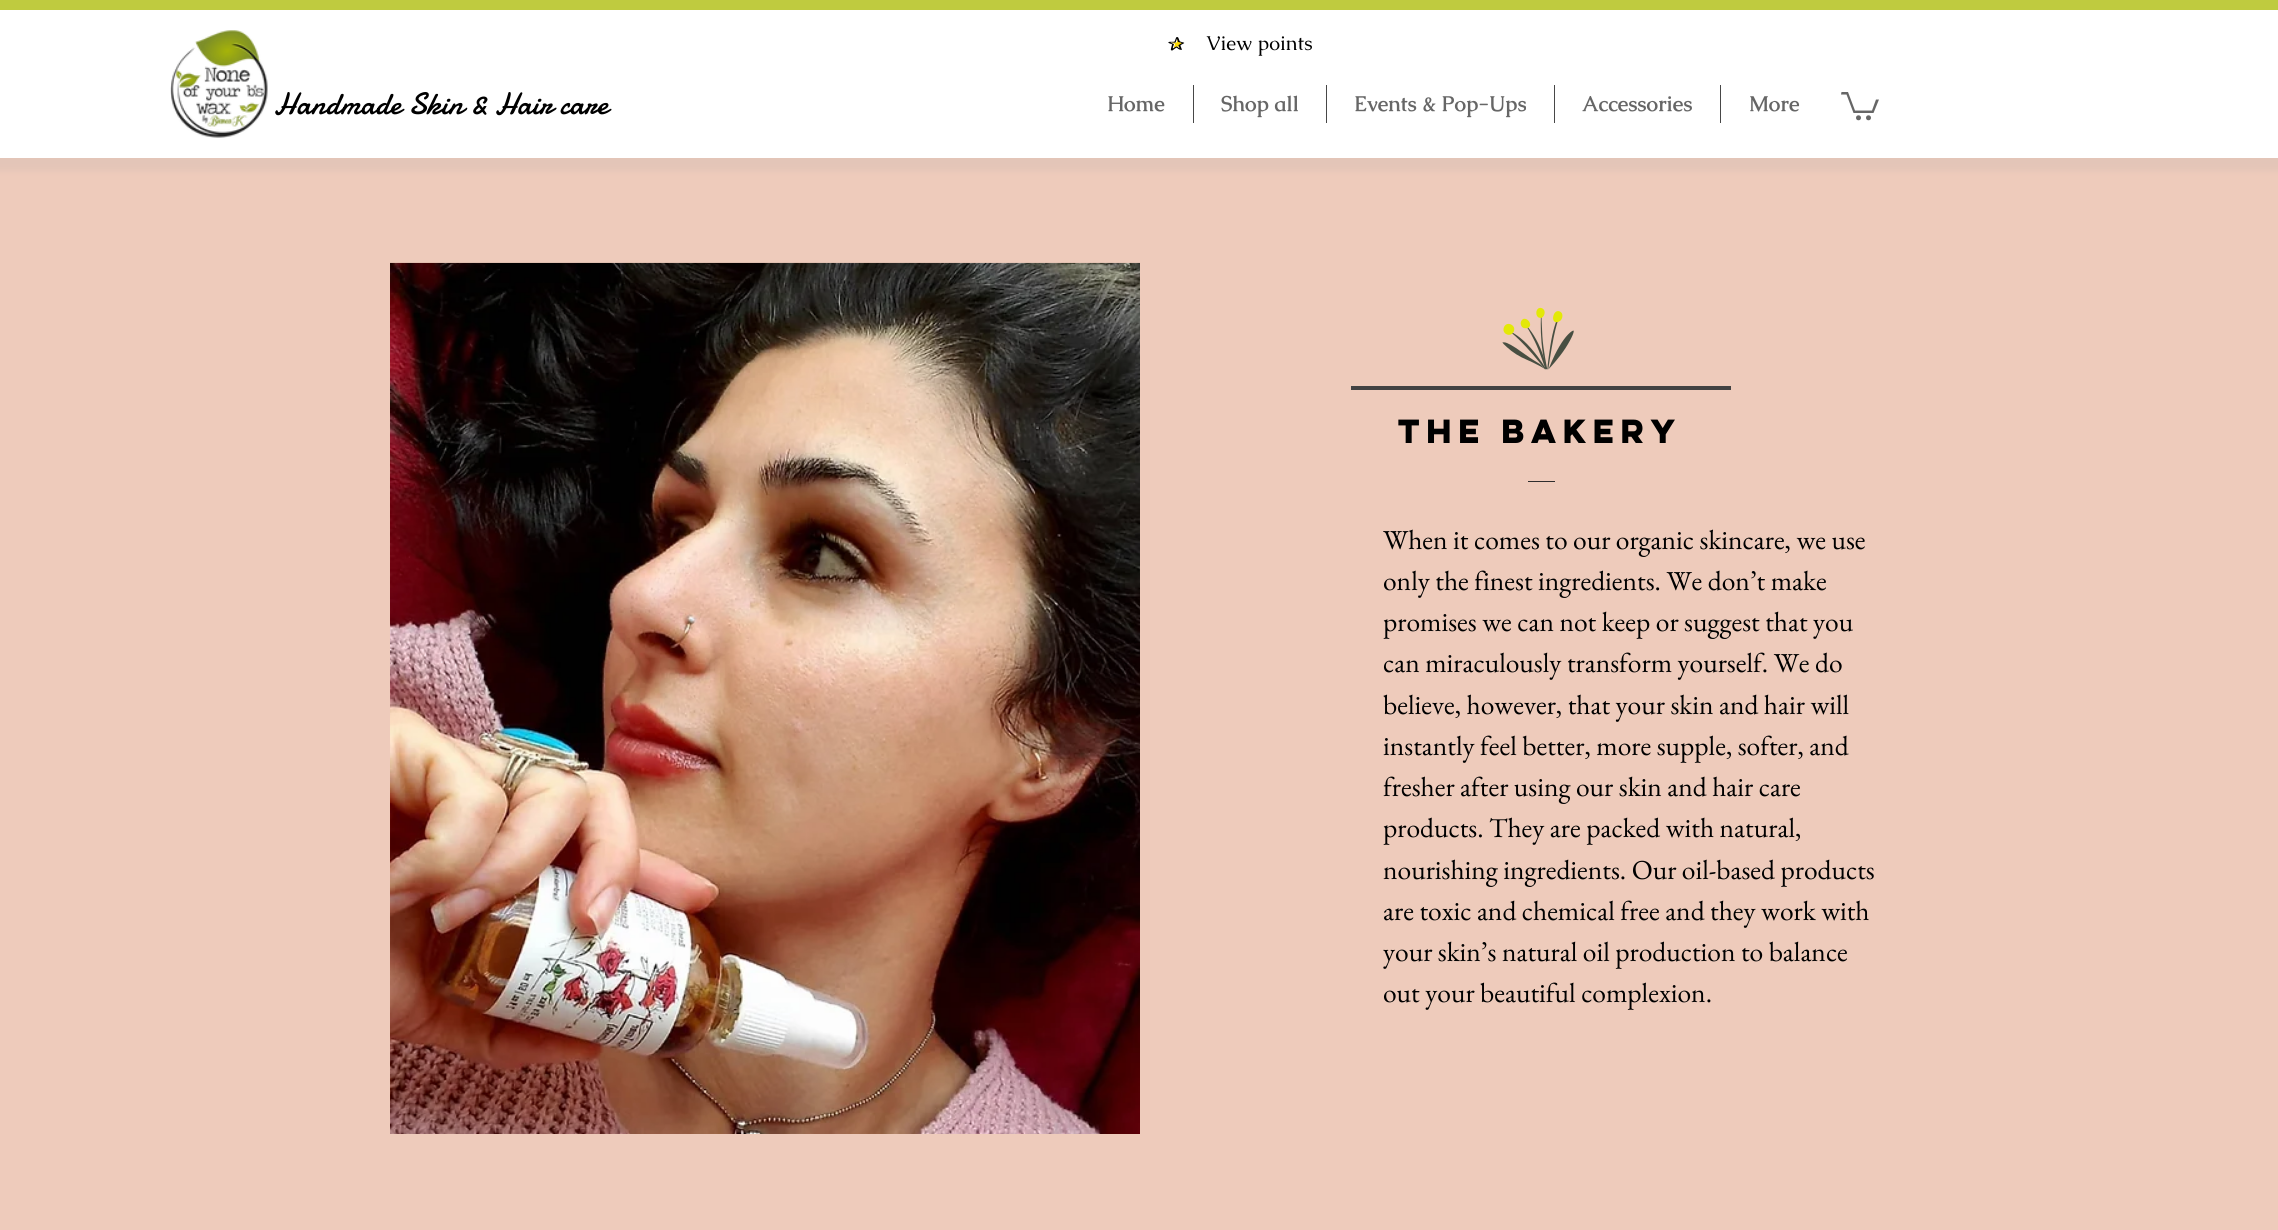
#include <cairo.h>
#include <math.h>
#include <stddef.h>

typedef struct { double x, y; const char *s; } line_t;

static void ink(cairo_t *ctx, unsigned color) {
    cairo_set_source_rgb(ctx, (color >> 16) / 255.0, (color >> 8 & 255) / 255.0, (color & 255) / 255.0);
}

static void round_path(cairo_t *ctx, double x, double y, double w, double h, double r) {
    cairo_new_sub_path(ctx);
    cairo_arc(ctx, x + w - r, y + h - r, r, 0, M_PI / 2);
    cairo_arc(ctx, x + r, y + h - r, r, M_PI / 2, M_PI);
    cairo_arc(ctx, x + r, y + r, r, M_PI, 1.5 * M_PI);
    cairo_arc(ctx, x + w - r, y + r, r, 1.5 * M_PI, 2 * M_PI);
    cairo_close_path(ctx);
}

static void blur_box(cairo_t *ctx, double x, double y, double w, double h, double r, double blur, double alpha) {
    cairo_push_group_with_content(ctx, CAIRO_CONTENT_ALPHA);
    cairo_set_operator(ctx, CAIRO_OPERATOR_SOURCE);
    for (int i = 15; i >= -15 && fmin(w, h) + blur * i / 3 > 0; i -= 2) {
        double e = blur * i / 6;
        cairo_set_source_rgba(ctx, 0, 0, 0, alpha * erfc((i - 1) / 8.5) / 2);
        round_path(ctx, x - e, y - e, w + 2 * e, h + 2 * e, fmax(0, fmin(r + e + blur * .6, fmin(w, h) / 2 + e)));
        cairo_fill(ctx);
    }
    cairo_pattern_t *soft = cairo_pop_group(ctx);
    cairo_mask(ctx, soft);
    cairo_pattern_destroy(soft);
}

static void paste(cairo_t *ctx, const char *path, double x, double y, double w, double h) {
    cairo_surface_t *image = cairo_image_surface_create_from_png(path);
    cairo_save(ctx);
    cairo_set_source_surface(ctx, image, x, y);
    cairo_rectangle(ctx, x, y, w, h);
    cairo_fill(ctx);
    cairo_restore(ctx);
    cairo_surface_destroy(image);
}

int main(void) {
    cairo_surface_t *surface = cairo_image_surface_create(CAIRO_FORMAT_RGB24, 2278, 1230);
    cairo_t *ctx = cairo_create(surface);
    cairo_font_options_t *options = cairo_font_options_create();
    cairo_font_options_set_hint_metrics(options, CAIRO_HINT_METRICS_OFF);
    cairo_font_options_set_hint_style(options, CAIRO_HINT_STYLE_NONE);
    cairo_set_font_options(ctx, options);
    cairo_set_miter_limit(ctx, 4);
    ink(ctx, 0xD16E43);
    cairo_paint(ctx);
    ink(ctx, 0x000000);
    blur_box(ctx, -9, -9, 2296, 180, 0, 3, 0.15);
    ink(ctx, 0xFFFFFF);
    cairo_rectangle(ctx, 0, 10, 2278, 148);
    cairo_fill(ctx);
    ink(ctx, 0xBFCB3F);
    cairo_rectangle(ctx, 0, 0, 2278, 10);
    cairo_fill(ctx);
    paste(ctx, "media/1.png", 1168, 37, 17, 14);
    cairo_select_font_face(ctx, "Caudex", CAIRO_FONT_SLANT_NORMAL, CAIRO_FONT_WEIGHT_NORMAL);
    cairo_set_font_size(ctx, 20);
    ink(ctx, 0x000000);
    cairo_move_to(ctx, 1206, 50);
    cairo_show_text(ctx, "View points");
    paste(ctx, "media/2.png", 170, 30, 98, 108);
    cairo_select_font_face(ctx, "Damion", CAIRO_FONT_SLANT_NORMAL, CAIRO_FONT_WEIGHT_NORMAL);
    cairo_set_font_size(ctx, 31.25);
    cairo_move_to(ctx, 274, 114);
    cairo_show_text(ctx, "Handmade Skin & Hair care");
    cairo_select_font_face(ctx, "Caudex", CAIRO_FONT_SLANT_NORMAL, CAIRO_FONT_WEIGHT_BOLD);
    cairo_set_font_size(ctx, 21.25);
    ink(ctx, 0x666666);
    cairo_move_to(ctx, 1107, 111);
    cairo_show_text(ctx, "Home");
    ink(ctx, 0x474747);
    cairo_rectangle(ctx, 1193, 85, 1, 38);
    cairo_fill(ctx);
    ink(ctx, 0x666666);
    cairo_move_to(ctx, 1221, 111);
    cairo_show_text(ctx, "Shop all");
    ink(ctx, 0x474747);
    cairo_rectangle(ctx, 1326, 85, 1, 38);
    cairo_fill(ctx);
    ink(ctx, 0x666666);
    cairo_move_to(ctx, 1354, 111);
    cairo_show_text(ctx, "Events & Pop-Ups");
    ink(ctx, 0x474747);
    cairo_rectangle(ctx, 1554, 85, 1, 38);
    cairo_fill(ctx);
    ink(ctx, 0x666666);
    cairo_move_to(ctx, 1582, 111);
    cairo_show_text(ctx, "Accessories");
    ink(ctx, 0x474747);
    cairo_rectangle(ctx, 1720, 85, 1, 38);
    cairo_fill(ctx);
    ink(ctx, 0x666666);
    cairo_move_to(ctx, 1749, 111);
    cairo_show_text(ctx, "More");
    cairo_new_path(ctx);
    cairo_move_to(ctx, 1879, 99.5);
    cairo_line_to(ctx, 1873.5, 113);
    cairo_line_to(ctx, 1853.5, 113);
    cairo_line_to(ctx, 1846.5, 94.5);
    cairo_line_to(ctx, 1841, 94.5);
    cairo_line_to(ctx, 1841.5, 92);
    cairo_line_to(ctx, 1848, 92);
    cairo_line_to(ctx, 1855, 110.5);
    cairo_line_to(ctx, 1872, 110.5);
    cairo_line_to(ctx, 1876, 99.5);
    cairo_fill(ctx);
    cairo_arc(ctx, 1868.5, 117.8, 2.5, 0, 2 * M_PI);
    cairo_fill(ctx);
    cairo_arc(ctx, 1858.5, 117.8, 2.5, 0, 2 * M_PI);
    cairo_fill(ctx);
    cairo_set_source_rgba(ctx, 1, 1, 1, 0.64);
    cairo_rectangle(ctx, 0, 158, 2278, 1072);
    cairo_fill(ctx);
    paste(ctx, "media/3.png", 390, 262, 750, 872);
    paste(ctx, "media/4.png", 1502, 307, 72, 63);
    ink(ctx, 0x424242);
    cairo_rectangle(ctx, 1351, 386, 380, 4);
    cairo_fill(ctx);
    cairo_select_font_face(ctx, "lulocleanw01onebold", CAIRO_FONT_SLANT_NORMAL, CAIRO_FONT_WEIGHT_BOLD);
    cairo_set_font_size(ctx, 30);
    ink(ctx, 0x000000);
    cairo_move_to(ctx, 1398, 443);
    cairo_show_text(ctx, "THE BAKERY");
    ink(ctx, 0x2F2E2E);
    cairo_rectangle(ctx, 1528, 481, 27, 1);
    cairo_fill(ctx);
    cairo_select_font_face(ctx, "EB Garamond", CAIRO_FONT_SLANT_NORMAL, CAIRO_FONT_WEIGHT_NORMAL);
    cairo_set_font_size(ctx, 27.5);
    ink(ctx, 0x000000);
    {
        static const line_t items[] = {
            {1383, 549, "When it comes to our organic skincare, we use"},
            {1383, 590, "only the finest ingredients. We don’t make"},
            {1383, 631, "promises we can not keep or suggest that you"},
            {1383, 672, "can miraculously transform yourself. We do"},
            {1383, 714, "believe, however, that your skin and hair will"},
            {1383, 755, "instantly feel better, more supple, softer, and"},
            {1383, 796, "fresher after using our skin and hair care"},
            {1383, 837, "products. They are packed with natural,"},
            {1383, 879, "nourishing ingredients. Our oil-based products"},
            {1383, 920, "are toxic and chemical free and they work with"},
            {1383, 961, "your skin’s natural oil production to balance"},
            {1383, 1002, "out your beautiful complexion."},
        };
        for (size_t i = 0; i < sizeof items / sizeof *items; i++) {
            cairo_move_to(ctx, items[i].x, items[i].y);
            cairo_show_text(ctx, items[i].s);
        }
    }
    cairo_surface_write_to_png(surface, "image.png");
    cairo_font_options_destroy(options);
    cairo_destroy(ctx);
    cairo_surface_destroy(surface);
    return 0;
}
